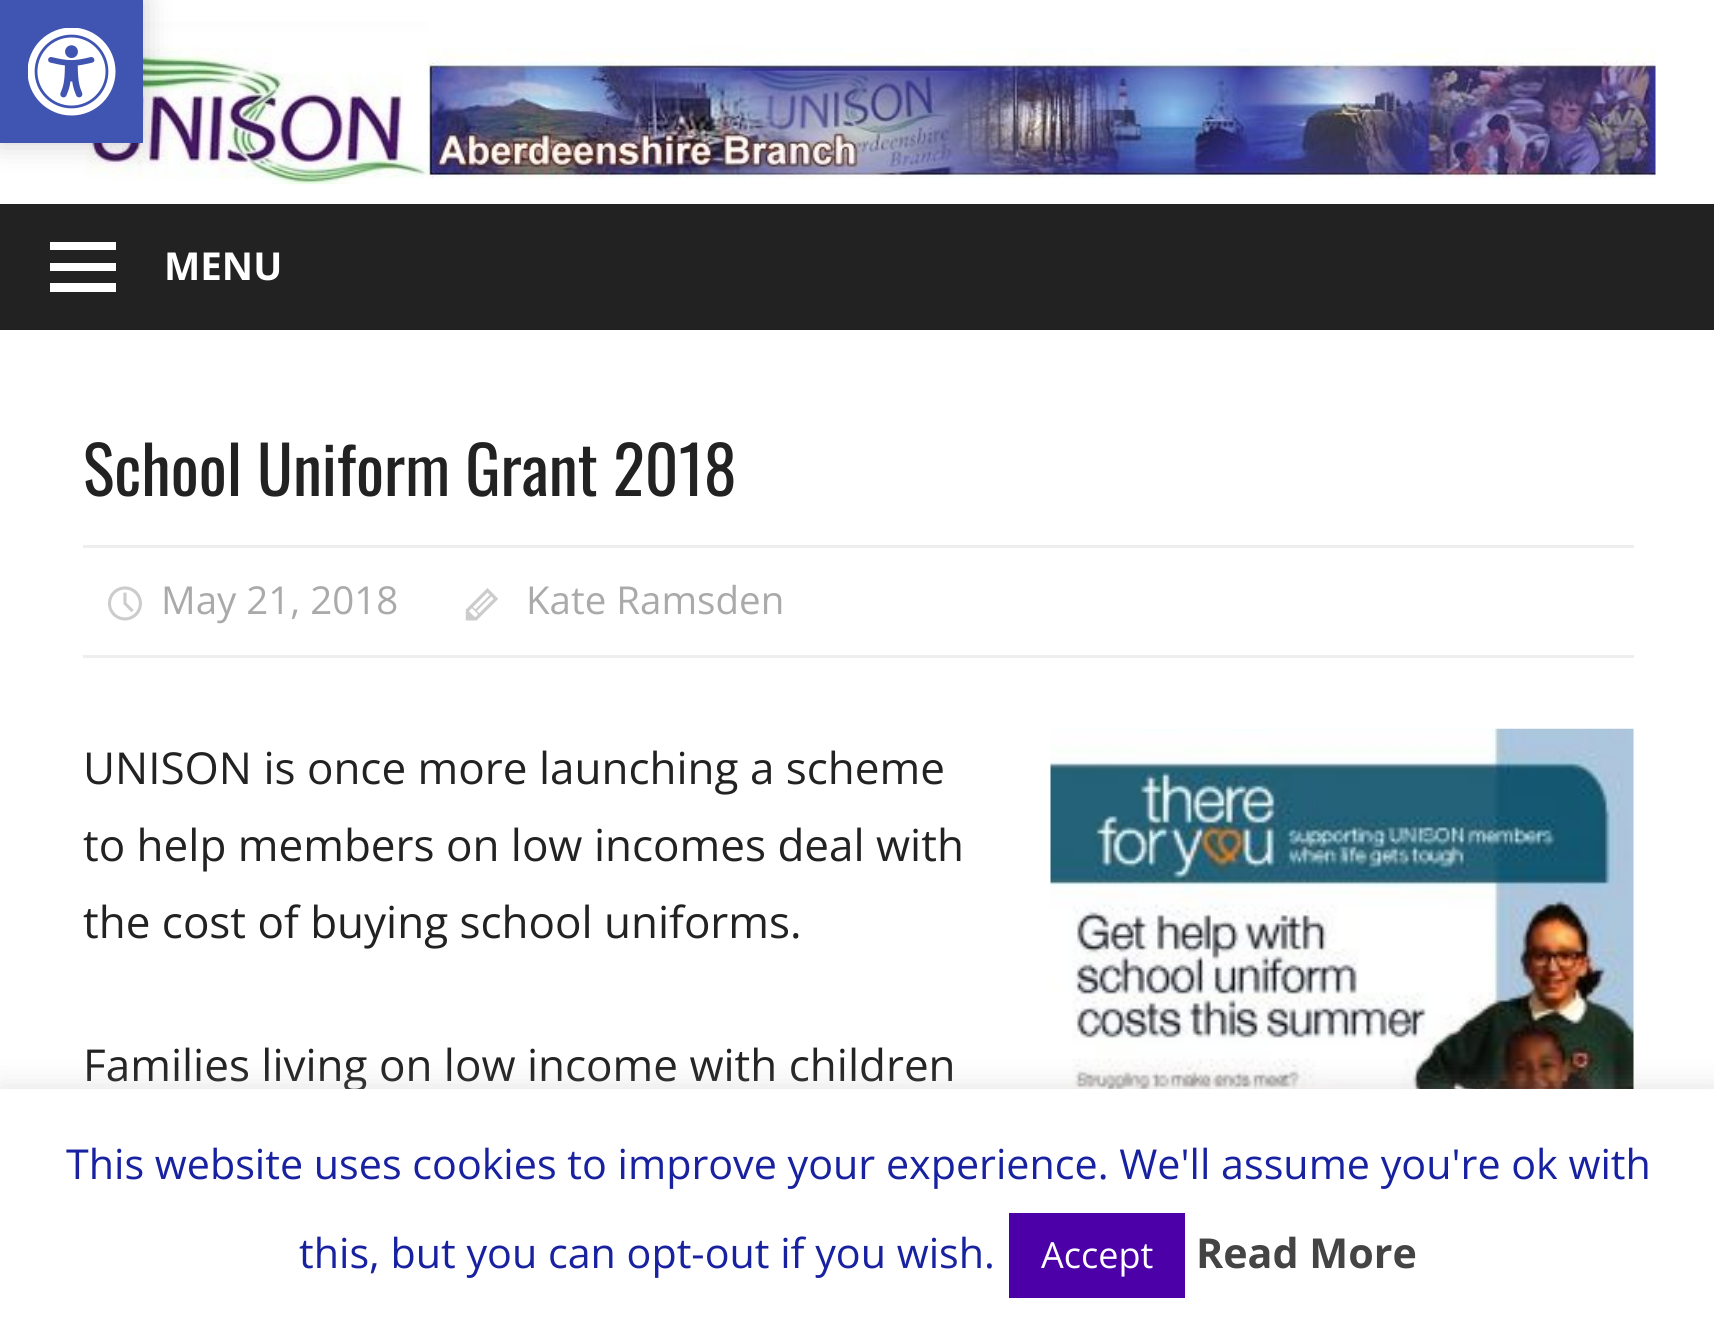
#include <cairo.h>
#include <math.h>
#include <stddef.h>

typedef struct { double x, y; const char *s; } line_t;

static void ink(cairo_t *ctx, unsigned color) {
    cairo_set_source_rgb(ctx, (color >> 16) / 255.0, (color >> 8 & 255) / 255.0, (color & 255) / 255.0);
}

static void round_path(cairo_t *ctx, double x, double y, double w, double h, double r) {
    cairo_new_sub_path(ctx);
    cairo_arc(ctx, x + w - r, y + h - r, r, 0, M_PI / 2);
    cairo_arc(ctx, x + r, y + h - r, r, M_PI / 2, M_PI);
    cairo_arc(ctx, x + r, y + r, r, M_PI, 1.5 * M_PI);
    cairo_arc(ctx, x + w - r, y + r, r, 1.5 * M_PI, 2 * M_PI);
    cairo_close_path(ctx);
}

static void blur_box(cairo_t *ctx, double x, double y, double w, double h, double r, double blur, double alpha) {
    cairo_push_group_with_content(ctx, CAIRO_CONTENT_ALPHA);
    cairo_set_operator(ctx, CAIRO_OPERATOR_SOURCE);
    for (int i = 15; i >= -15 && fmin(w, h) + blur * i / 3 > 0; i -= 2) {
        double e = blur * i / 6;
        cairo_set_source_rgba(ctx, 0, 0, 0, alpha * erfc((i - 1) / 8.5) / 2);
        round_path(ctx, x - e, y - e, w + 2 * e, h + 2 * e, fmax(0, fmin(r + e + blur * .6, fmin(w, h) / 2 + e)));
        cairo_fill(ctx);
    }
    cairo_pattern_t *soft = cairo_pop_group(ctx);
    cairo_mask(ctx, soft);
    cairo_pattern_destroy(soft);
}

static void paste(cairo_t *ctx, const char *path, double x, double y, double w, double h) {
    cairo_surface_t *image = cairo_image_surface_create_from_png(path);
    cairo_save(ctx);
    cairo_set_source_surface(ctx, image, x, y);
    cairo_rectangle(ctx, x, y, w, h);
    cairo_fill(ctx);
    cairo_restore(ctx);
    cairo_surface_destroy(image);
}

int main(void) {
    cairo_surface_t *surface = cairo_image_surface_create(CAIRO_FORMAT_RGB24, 1714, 1330);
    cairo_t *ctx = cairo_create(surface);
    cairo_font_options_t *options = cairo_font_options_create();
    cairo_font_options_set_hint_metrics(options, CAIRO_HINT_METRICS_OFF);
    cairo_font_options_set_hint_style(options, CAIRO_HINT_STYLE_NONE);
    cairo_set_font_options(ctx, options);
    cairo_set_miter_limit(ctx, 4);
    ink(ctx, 0xFFFFFF);
    cairo_paint(ctx);
    paste(ctx, "media/2.png", 63, 22, 1593, 163);
    ink(ctx, 0x000000);
    blur_box(ctx, 0, 0, 143, 143, 0, 14, 0.2);
    ink(ctx, 0x4054B2);
    cairo_rectangle(ctx, 0, 0, 143, 143);
    cairo_fill(ctx);
    paste(ctx, "media/1.png", 28, 28, 88, 88);
    ink(ctx, 0x222222);
    cairo_rectangle(ctx, 0, 204, 1714, 126);
    cairo_fill(ctx);
    ink(ctx, 0xFFFFFF);
    cairo_new_path(ctx);
    cairo_move_to(ctx, 50, 292);
    cairo_line_to(ctx, 50, 283);
    cairo_line_to(ctx, 116, 283);
    cairo_line_to(ctx, 116, 292);
    cairo_close_path(ctx);
    cairo_move_to(ctx, 50, 242);
    cairo_line_to(ctx, 116, 242);
    cairo_line_to(ctx, 116, 250);
    cairo_line_to(ctx, 50, 250);
    cairo_close_path(ctx);
    cairo_move_to(ctx, 50, 271);
    cairo_line_to(ctx, 50, 263);
    cairo_line_to(ctx, 116, 263);
    cairo_line_to(ctx, 116, 271);
    cairo_close_path(ctx);
    cairo_fill(ctx);
    cairo_select_font_face(ctx, "Open Sans", CAIRO_FONT_SLANT_NORMAL, CAIRO_FONT_WEIGHT_BOLD);
    cairo_set_font_size(ctx, 38.5);
    cairo_move_to(ctx, 164, 280);
    cairo_show_text(ctx, "MENU");
    cairo_select_font_face(ctx, "Oswald", CAIRO_FONT_SLANT_NORMAL, CAIRO_FONT_WEIGHT_NORMAL);
    cairo_set_font_size(ctx, 66);
    ink(ctx, 0x222222);
    cairo_move_to(ctx, 83, 496);
    cairo_show_text(ctx, "School Uniform Grant 2018");
    ink(ctx, 0xEEEEEE);
    cairo_rectangle(ctx, 83, 545, 1551, 3);
    cairo_fill(ctx);
    cairo_rectangle(ctx, 83, 655, 1551, 3);
    cairo_fill(ctx);
    paste(ctx, "media/3.png", 108, 586, 34, 35);
    cairo_select_font_face(ctx, "Open Sans", CAIRO_FONT_SLANT_NORMAL, CAIRO_FONT_WEIGHT_NORMAL);
    cairo_set_font_size(ctx, 38.5);
    ink(ctx, 0xAAAAAA);
    cairo_move_to(ctx, 161, 614);
    cairo_show_text(ctx, "May 21, 2018");
    paste(ctx, "media/4.png", 465, 588, 33, 33);
    cairo_move_to(ctx, 526, 614);
    cairo_show_text(ctx, "Kate Ramsden");
    cairo_set_font_size(ctx, 44);
    ink(ctx, 0x222222);
    cairo_move_to(ctx, 83, 784);
    cairo_show_text(ctx, "UNISON is once more launching a scheme");
    paste(ctx, "media/5.png", 1050, 728, 584, 361);
    {
        static const line_t items[] = {
            {83, 861, "to help members on low incomes deal with"},
            {83, 938, "the cost of buying school uniforms."},
            {83, 1081, "Families living on low income with children"},
        };
        for (size_t i = 0; i < sizeof items / sizeof *items; i++) {
            cairo_move_to(ctx, items[i].x, items[i].y);
            cairo_show_text(ctx, items[i].s);
        }
    }
    ink(ctx, 0xACABAB);
    blur_box(ctx, 0, 1086, 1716, 242, 0, 14, 0.3);
    ink(ctx, 0xFFFFFF);
    cairo_rectangle(ctx, 0, 1089, 1714, 241);
    cairo_fill(ctx);
    cairo_set_font_size(ctx, 41.25);
    ink(ctx, 0x1821A0);
    cairo_move_to(ctx, 66, 1179);
    cairo_show_text(ctx, "This website uses cookies to improve your experience. We'll assume you're ok with");
    cairo_move_to(ctx, 299, 1268);
    cairo_show_text(ctx, "this, but you can opt-out if you wish.");
    ink(ctx, 0x4C01A8);
    cairo_rectangle(ctx, 1009, 1213, 176, 85);
    cairo_fill(ctx);
    cairo_set_font_size(ctx, 36);
    ink(ctx, 0xFFFFFF);
    cairo_move_to(ctx, 1041, 1268);
    cairo_show_text(ctx, "Accept");
    cairo_select_font_face(ctx, "Open Sans", CAIRO_FONT_SLANT_NORMAL, CAIRO_FONT_WEIGHT_BOLD);
    cairo_set_font_size(ctx, 41.25);
    ink(ctx, 0x444444);
    cairo_move_to(ctx, 1196, 1268);
    cairo_show_text(ctx, "Read More");
    cairo_surface_write_to_png(surface, "image.png");
    cairo_font_options_destroy(options);
    cairo_destroy(ctx);
    cairo_surface_destroy(surface);
    return 0;
}
